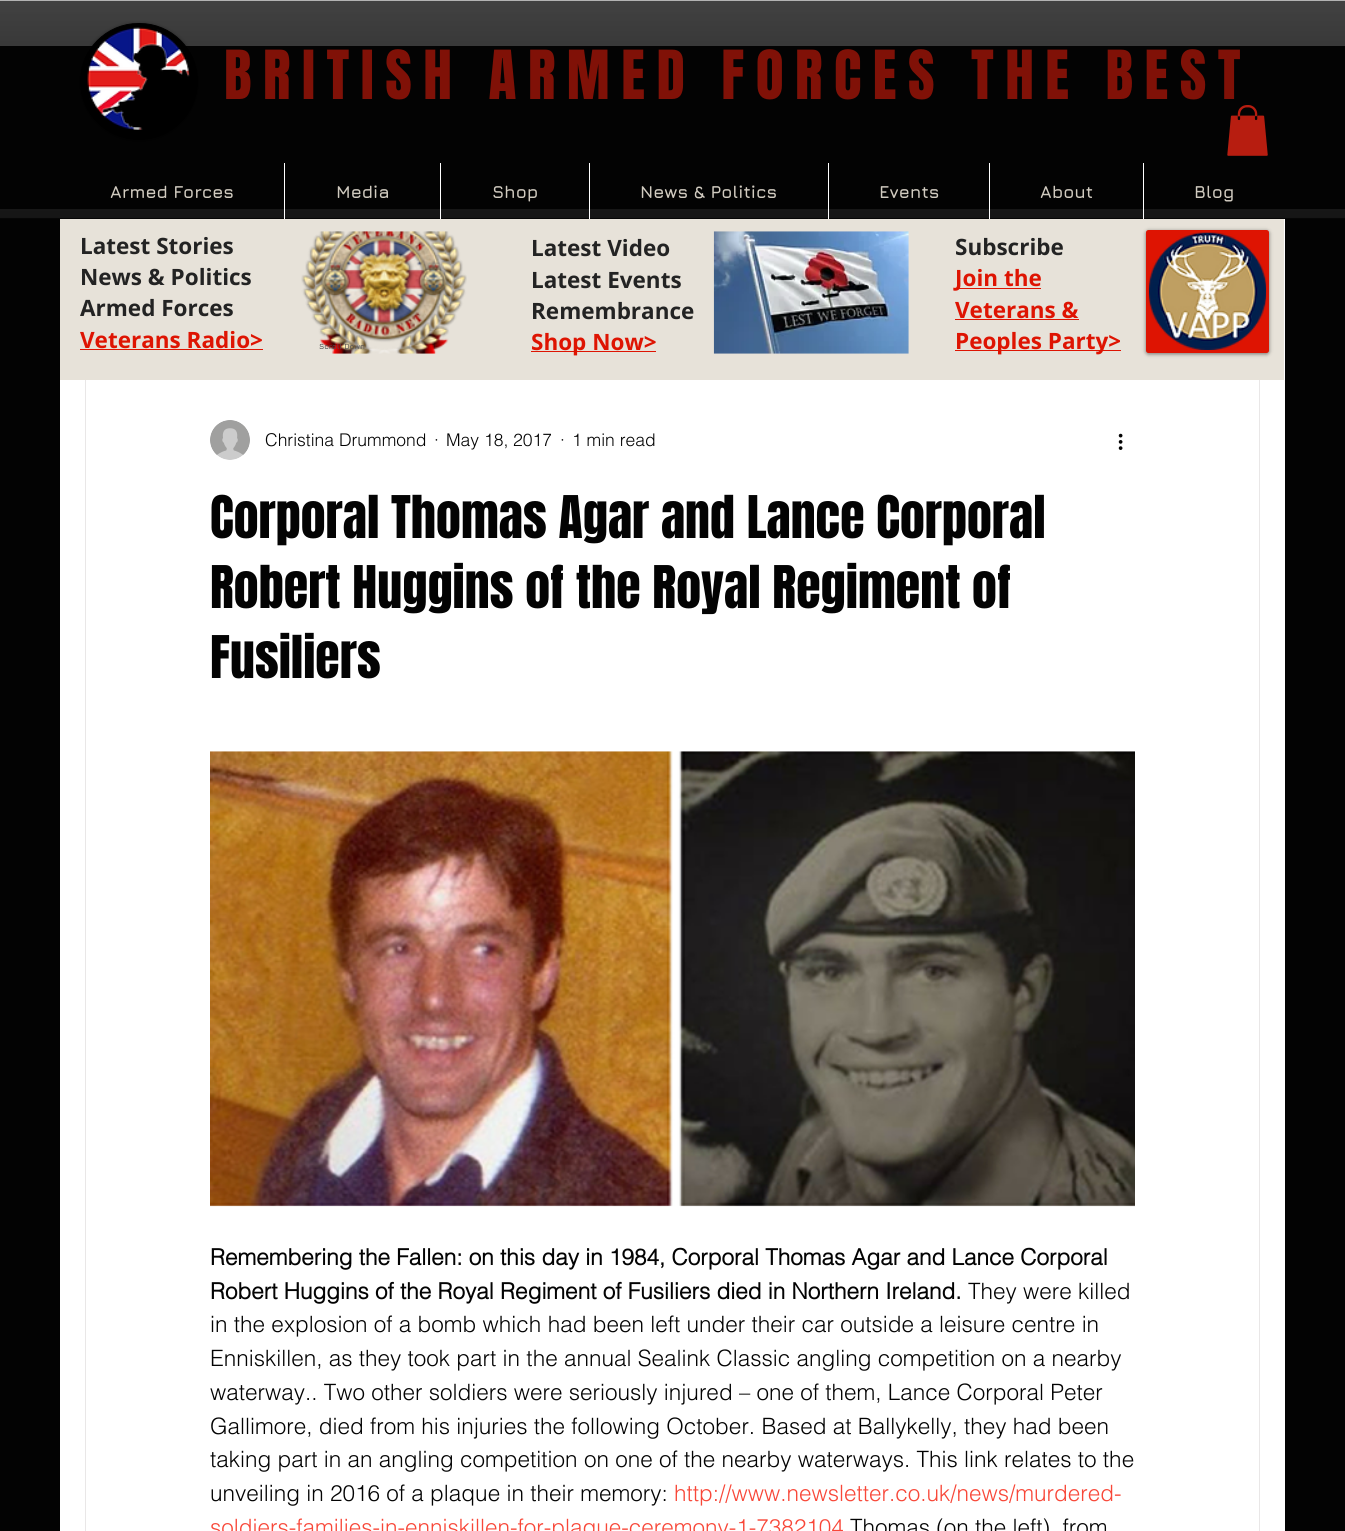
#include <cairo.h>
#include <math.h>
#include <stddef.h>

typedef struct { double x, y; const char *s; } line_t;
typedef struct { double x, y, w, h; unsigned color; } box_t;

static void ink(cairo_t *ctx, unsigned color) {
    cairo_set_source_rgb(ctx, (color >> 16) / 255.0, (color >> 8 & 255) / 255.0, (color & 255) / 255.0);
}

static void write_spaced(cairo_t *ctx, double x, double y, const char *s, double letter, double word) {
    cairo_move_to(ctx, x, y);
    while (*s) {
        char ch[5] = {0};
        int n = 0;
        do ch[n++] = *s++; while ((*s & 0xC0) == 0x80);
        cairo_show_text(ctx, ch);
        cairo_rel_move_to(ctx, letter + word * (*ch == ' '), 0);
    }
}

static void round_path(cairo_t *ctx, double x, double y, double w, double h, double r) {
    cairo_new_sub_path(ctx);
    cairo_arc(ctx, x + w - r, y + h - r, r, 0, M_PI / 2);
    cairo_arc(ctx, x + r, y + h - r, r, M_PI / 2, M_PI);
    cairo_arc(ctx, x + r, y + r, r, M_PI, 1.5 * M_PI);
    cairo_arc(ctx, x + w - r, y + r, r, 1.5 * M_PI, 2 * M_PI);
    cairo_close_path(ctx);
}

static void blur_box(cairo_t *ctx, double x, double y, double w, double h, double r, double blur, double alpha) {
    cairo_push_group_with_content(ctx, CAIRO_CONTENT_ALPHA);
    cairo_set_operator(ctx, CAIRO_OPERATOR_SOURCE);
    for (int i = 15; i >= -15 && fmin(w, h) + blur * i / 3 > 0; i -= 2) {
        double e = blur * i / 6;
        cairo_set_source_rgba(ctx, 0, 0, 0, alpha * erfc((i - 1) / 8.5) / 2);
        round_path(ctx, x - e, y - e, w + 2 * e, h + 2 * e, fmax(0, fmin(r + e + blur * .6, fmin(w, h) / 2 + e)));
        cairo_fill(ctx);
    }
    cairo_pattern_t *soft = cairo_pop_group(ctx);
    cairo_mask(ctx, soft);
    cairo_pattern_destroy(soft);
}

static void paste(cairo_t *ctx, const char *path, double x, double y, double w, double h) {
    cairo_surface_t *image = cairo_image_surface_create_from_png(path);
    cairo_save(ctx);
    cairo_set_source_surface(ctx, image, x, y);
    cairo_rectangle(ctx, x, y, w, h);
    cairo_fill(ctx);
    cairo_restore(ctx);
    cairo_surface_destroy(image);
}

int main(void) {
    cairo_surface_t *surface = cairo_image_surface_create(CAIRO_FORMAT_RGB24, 1345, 1531);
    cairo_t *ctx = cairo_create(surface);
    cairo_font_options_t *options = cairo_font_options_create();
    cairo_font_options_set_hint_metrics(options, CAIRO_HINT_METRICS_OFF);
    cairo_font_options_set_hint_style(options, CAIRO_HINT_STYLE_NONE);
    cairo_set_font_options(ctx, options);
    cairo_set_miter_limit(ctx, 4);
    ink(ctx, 0x030303);
    cairo_paint(ctx);
    ink(ctx, 0x000000);
    cairo_rectangle(ctx, 0, 1, 1345, 217);
    cairo_fill(ctx);
    paste(ctx, "media/1.png", 0, 1, 1345, 217);
    {
        static const box_t items[] = {
            {0, 218, 1345, 1, 0x060606},
            {0, 0, 1345, 1, 0xB3B3B3},
            {0, 46, 1345, 163, 0x030303},
        };
        for (size_t i = 0; i < sizeof items / sizeof *items; i++) {
            ink(ctx, items[i].color);
            cairo_rectangle(ctx, items[i].x, items[i].y, items[i].w, items[i].h);
            cairo_fill(ctx);
        }
    }
    ink(ctx, 0x000000);
    blur_box(ctx, 80, 24, 118, 117, 58.5, 2, 0.5);
    ink(ctx, 0x000000);
    round_path(ctx, 80.5, 23.5, 117, 116, 58);
    cairo_fill_preserve(ctx);
    cairo_set_line_width(ctx, 1);
    cairo_stroke(ctx);
    paste(ctx, "media/2.png", 87, 27, 103, 103);
    cairo_select_font_face(ctx, "Anton", CAIRO_FONT_SLANT_NORMAL, CAIRO_FONT_WEIGHT_NORMAL);
    cairo_set_font_size(ctx, 57.5);
    ink(ctx, 0x801107);
    write_spaced(ctx, 224, 99, "BRITISH ARMED FORCES THE BEST", 11.5, 0);
    paste(ctx, "media/3.png", 1227, 105, 41, 51);
    cairo_select_font_face(ctx, "Jura", CAIRO_FONT_SLANT_NORMAL, CAIRO_FONT_WEIGHT_BOLD);
    cairo_set_font_size(ctx, 17.5);
    ink(ctx, 0xD1CBC0);
    cairo_move_to(ctx, 110, 198);
    cairo_show_text(ctx, "Armed Forces");
    ink(ctx, 0xFFFFFF);
    cairo_rectangle(ctx, 284, 163, 1, 56);
    cairo_fill(ctx);
    ink(ctx, 0xD1CBC0);
    cairo_move_to(ctx, 336, 198);
    cairo_show_text(ctx, "Media");
    ink(ctx, 0xFFFFFF);
    cairo_rectangle(ctx, 440, 163, 1, 56);
    cairo_fill(ctx);
    ink(ctx, 0xD1CBC0);
    cairo_move_to(ctx, 492, 198);
    cairo_show_text(ctx, "Shop");
    ink(ctx, 0xFFFFFF);
    cairo_rectangle(ctx, 589, 163, 1, 56);
    cairo_fill(ctx);
    ink(ctx, 0xD1CBC0);
    cairo_move_to(ctx, 640, 198);
    cairo_show_text(ctx, "News & Politics");
    ink(ctx, 0xFFFFFF);
    cairo_rectangle(ctx, 828, 163, 1, 56);
    cairo_fill(ctx);
    ink(ctx, 0xD1CBC0);
    cairo_move_to(ctx, 879, 198);
    cairo_show_text(ctx, "Events");
    ink(ctx, 0xFFFFFF);
    cairo_rectangle(ctx, 989, 163, 1, 56);
    cairo_fill(ctx);
    ink(ctx, 0xD1CBC0);
    cairo_move_to(ctx, 1040, 198);
    cairo_show_text(ctx, "About");
    ink(ctx, 0xFFFFFF);
    cairo_rectangle(ctx, 1143, 163, 1, 56);
    cairo_fill(ctx);
    ink(ctx, 0xD1CBC0);
    cairo_move_to(ctx, 1194, 198);
    cairo_show_text(ctx, "Blog");
    ink(ctx, 0xFFFFFF);
    cairo_rectangle(ctx, 60, 219, 1225, 1312);
    cairo_fill(ctx);
    cairo_rectangle(ctx, 85.5, 344.5, 1174, 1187);
    ink(ctx, 0xE9E7E7);
    cairo_stroke(ctx);
    ink(ctx, 0xE7E2D9);
    cairo_rectangle(ctx, 60, 219, 1224, 161);
    cairo_fill(ctx);
    cairo_select_font_face(ctx, "Open Sans", CAIRO_FONT_SLANT_NORMAL, CAIRO_FONT_WEIGHT_BOLD);
    cairo_set_font_size(ctx, 22.5);
    ink(ctx, 0x232323);
    {
        static const line_t items[] = {
            {80, 254, "Latest Stories"},
            {80, 285, "News & Politics"},
            {80, 316, "Armed Forces"},
        };
        for (size_t i = 0; i < sizeof items / sizeof *items; i++) {
            cairo_move_to(ctx, items[i].x, items[i].y);
            cairo_show_text(ctx, items[i].s);
        }
    }
    ink(ctx, 0xDE1402);
    cairo_move_to(ctx, 80, 348);
    cairo_show_text(ctx, "Veterans Radio>");
    cairo_rectangle(ctx, 80, 349, 183, 1);
    cairo_fill(ctx);
    paste(ctx, "media/4.png", 301, 231, 166, 123);
    ink(ctx, 0x232323);
    {
        static const line_t items[] = {
            {531, 256, "Latest Video"},
            {531, 288, "Latest Events"},
            {531, 319, "Remembrance"},
        };
        for (size_t i = 0; i < sizeof items / sizeof *items; i++) {
            cairo_move_to(ctx, items[i].x, items[i].y);
            cairo_show_text(ctx, items[i].s);
        }
    }
    ink(ctx, 0xDE1402);
    cairo_rectangle(ctx, 531, 351, 125, 1);
    cairo_fill(ctx);
    cairo_move_to(ctx, 531, 350);
    cairo_show_text(ctx, "Shop Now>");
    paste(ctx, "media/5.png", 713, 231, 196, 123);
    ink(ctx, 0x232323);
    cairo_move_to(ctx, 955, 255);
    cairo_show_text(ctx, "Subscribe");
    ink(ctx, 0xDE1402);
    cairo_rectangle(ctx, 955, 288, 86, 1);
    cairo_fill(ctx);
    cairo_move_to(ctx, 955, 286);
    cairo_show_text(ctx, "Join the");
    cairo_move_to(ctx, 955, 318);
    cairo_show_text(ctx, "Veterans &");
    cairo_rectangle(ctx, 955, 319, 124, 1);
    cairo_fill(ctx);
    cairo_rectangle(ctx, 955, 350, 166, 1);
    cairo_fill(ctx);
    cairo_move_to(ctx, 955, 349);
    cairo_show_text(ctx, "Peoples Party>");
    ink(ctx, 0x000000);
    blur_box(ctx, 1146, 231, 123, 123, 2.5, 2, 0.5);
    ink(ctx, 0xDE1402);
    round_path(ctx, 1147.5, 231.5, 120, 120, 1);
    cairo_fill_preserve(ctx);
    cairo_set_line_width(ctx, 3);
    cairo_stroke(ctx);
    paste(ctx, "media/6.png", 1148, 232, 119, 118);
    cairo_select_font_face(ctx, "Jura", CAIRO_FONT_SLANT_NORMAL, CAIRO_FONT_WEIGHT_BOLD);
    cairo_set_font_size(ctx, 7.5);
    ink(ctx, 0x514F4F);
    cairo_move_to(ctx, 319, 349);
    cairo_show_text(ctx, "Scroll Down");
    paste(ctx, "media/7.png", 210, 420, 40, 40);
    cairo_select_font_face(ctx, "helvetica Light", CAIRO_FONT_SLANT_NORMAL, CAIRO_FONT_WEIGHT_NORMAL);
    cairo_set_font_size(ctx, 17.5);
    ink(ctx, 0x030303);
    {
        static const line_t items[] = {
            {265, 446, "Christina Drummond"},
            {434, 446, "·"},
            {446, 446, "May 18, 2017"},
            {560, 446, "·"},
            {572, 446, "1 min read"},
        };
        for (size_t i = 0; i < sizeof items / sizeof *items; i++) {
            cairo_move_to(ctx, items[i].x, items[i].y);
            cairo_show_text(ctx, items[i].s);
        }
    }
    paste(ctx, "media/8.png", 1118, 433, 5, 17);
    cairo_select_font_face(ctx, "Anton", CAIRO_FONT_SLANT_NORMAL, CAIRO_FONT_WEIGHT_NORMAL);
    cairo_set_font_size(ctx, 50);
    {
        static const line_t items[] = {
            {210, 538, "Corporal Thomas Agar and Lance Corporal"},
            {210, 608, "Robert Huggins of the Royal Regiment of"},
            {210, 678, "Fusiliers"},
        };
        for (size_t i = 0; i < sizeof items / sizeof *items; i++) {
            cairo_move_to(ctx, items[i].x, items[i].y);
            cairo_show_text(ctx, items[i].s);
        }
    }
    paste(ctx, "media/9.png", 210, 751, 925, 456);
    cairo_select_font_face(ctx, "helvetica", CAIRO_FONT_SLANT_NORMAL, CAIRO_FONT_WEIGHT_BOLD);
    cairo_set_font_size(ctx, 22.5);
    cairo_move_to(ctx, 210, 1265);
    cairo_show_text(ctx, "Remembering the Fallen: on this day in 1984, Corporal Thomas Agar and Lance Corporal");
    cairo_move_to(ctx, 210, 1299);
    cairo_show_text(ctx, "Robert Huggins of the Royal Regiment of Fusiliers died in Northern Ireland.");
    cairo_select_font_face(ctx, "helvetica Light", CAIRO_FONT_SLANT_NORMAL, CAIRO_FONT_WEIGHT_NORMAL);
    {
        static const line_t items[] = {
            {968, 1299, "They were killed"},
            {210, 1332, "in the explosion of a bomb which had been left under their car outside a leisure centre in"},
            {210, 1366, "Enniskillen, as they took part in the annual Sealink Classic angling competition on a nearby"},
            {210, 1400, "waterway.. Two other soldiers were seriously injured – one of them, Lance Corporal Peter"},
            {210, 1434, "Gallimore, died from his injuries the following October. Based at Ballykelly, they had been"},
            {210, 1467, "taking part in an angling competition on one of the nearby waterways. This link relates to the"},
            {210, 1501, "unveiling in 2016 of a plaque in their memory:"},
        };
        for (size_t i = 0; i < sizeof items / sizeof *items; i++) {
            cairo_move_to(ctx, items[i].x, items[i].y);
            cairo_show_text(ctx, items[i].s);
        }
    }
    ink(ctx, 0xF84738);
    cairo_move_to(ctx, 674, 1501);
    cairo_show_text(ctx, "http://www.newsletter.co.uk/news/murdered-");
    cairo_move_to(ctx, 210, 1535);
    cairo_show_text(ctx, "soldiers-families-in-enniskillen-for-plaque-ceremony-1-7382104");
    ink(ctx, 0x030303);
    cairo_move_to(ctx, 850, 1535);
    cairo_show_text(ctx, "Thomas (on the left), from");
    cairo_surface_write_to_png(surface, "image.png");
    cairo_font_options_destroy(options);
    cairo_destroy(ctx);
    cairo_surface_destroy(surface);
    return 0;
}
